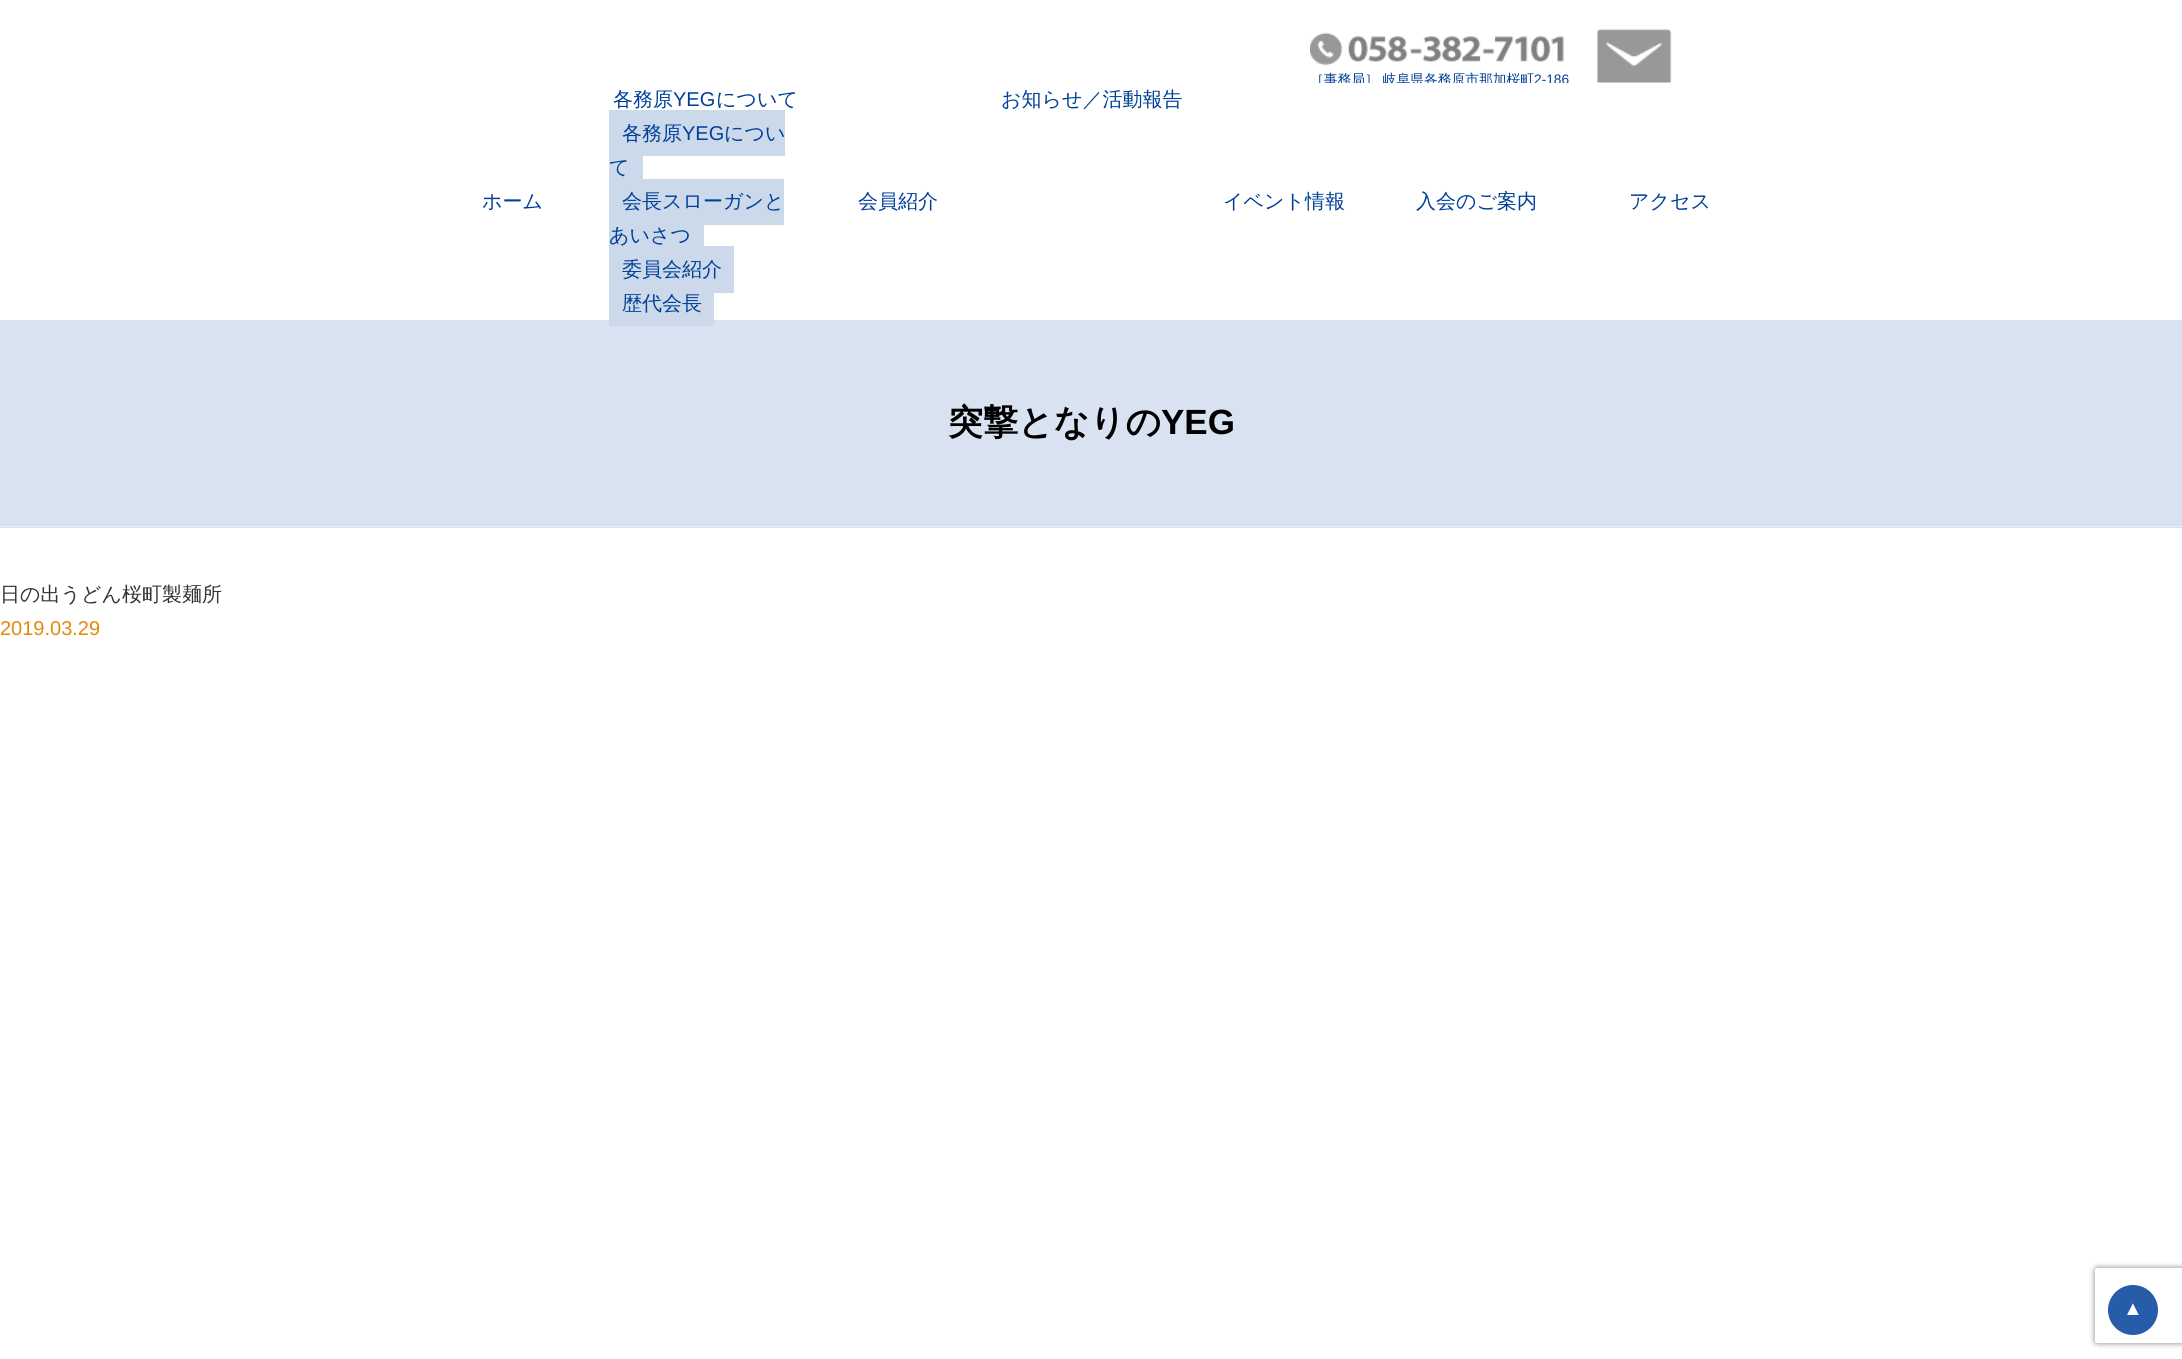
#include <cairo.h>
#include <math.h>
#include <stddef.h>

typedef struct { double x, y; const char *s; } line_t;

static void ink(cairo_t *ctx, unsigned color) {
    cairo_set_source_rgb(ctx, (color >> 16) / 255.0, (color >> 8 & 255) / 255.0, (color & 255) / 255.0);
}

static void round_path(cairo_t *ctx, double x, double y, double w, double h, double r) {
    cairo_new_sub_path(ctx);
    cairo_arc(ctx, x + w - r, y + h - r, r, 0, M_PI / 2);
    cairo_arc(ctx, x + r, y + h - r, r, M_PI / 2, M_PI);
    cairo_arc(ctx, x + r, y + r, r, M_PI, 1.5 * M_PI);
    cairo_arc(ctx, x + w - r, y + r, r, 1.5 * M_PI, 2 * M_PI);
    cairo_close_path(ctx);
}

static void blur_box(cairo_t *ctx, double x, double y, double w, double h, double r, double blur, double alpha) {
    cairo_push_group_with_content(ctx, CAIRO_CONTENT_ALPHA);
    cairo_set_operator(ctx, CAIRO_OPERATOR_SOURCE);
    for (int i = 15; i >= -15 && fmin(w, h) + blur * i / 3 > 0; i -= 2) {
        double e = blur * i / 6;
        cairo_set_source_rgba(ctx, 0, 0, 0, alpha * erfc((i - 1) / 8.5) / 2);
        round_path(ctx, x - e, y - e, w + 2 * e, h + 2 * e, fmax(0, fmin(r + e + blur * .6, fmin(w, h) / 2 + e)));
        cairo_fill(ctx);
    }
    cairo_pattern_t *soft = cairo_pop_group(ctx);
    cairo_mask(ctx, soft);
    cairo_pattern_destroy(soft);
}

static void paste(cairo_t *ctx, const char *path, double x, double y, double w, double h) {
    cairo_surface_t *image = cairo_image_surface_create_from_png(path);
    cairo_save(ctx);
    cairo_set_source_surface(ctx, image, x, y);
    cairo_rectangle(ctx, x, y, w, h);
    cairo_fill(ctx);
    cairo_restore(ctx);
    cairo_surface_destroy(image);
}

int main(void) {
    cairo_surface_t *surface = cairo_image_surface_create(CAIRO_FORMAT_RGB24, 2182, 1359);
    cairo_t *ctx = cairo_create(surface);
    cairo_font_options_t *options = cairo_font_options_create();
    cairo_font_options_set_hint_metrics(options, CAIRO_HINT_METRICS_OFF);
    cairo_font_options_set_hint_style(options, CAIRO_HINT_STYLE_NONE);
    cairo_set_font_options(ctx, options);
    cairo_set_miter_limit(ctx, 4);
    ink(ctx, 0xFFFFFF);
    cairo_paint(ctx);
    paste(ctx, "media/1.png", 1310, 32, 254, 34);
    cairo_save(ctx);
    cairo_rectangle(ctx, 0, 0, 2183, 83);
    cairo_clip(ctx);
    cairo_select_font_face(ctx, "WenQuanYi Zen Hei Medium", CAIRO_FONT_SLANT_NORMAL, CAIRO_FONT_WEIGHT_NORMAL);
    cairo_set_font_size(ctx, 13.75);
    ink(ctx, 0x004098);
    cairo_move_to(ctx, 1310, 84);
    cairo_show_text(ctx, "［事務局］ 岐阜県各務原市那加桜町");
    cairo_select_font_face(ctx, "Liberation Sans", CAIRO_FONT_SLANT_NORMAL, CAIRO_FONT_WEIGHT_NORMAL);
    cairo_move_to(ctx, 1534, 84);
    cairo_show_text(ctx, "2-186");
    cairo_restore(ctx);
    paste(ctx, "media/2.png", 1597, 28, 75, 55);
    cairo_select_font_face(ctx, "WenQuanYi Zen Hei Medium", CAIRO_FONT_SLANT_NORMAL, CAIRO_FONT_WEIGHT_NORMAL);
    cairo_set_font_size(ctx, 20);
    ink(ctx, 0x004098);
    cairo_move_to(ctx, 482, 208);
    cairo_show_text(ctx, "ホーム");
    cairo_move_to(ctx, 613, 106);
    cairo_show_text(ctx, "各務原");
    cairo_select_font_face(ctx, "Liberation Sans", CAIRO_FONT_SLANT_NORMAL, CAIRO_FONT_WEIGHT_NORMAL);
    cairo_move_to(ctx, 673, 106);
    cairo_show_text(ctx, "YEG");
    cairo_select_font_face(ctx, "WenQuanYi Zen Hei Medium", CAIRO_FONT_SLANT_NORMAL, CAIRO_FONT_WEIGHT_NORMAL);
    cairo_move_to(ctx, 716, 106);
    cairo_show_text(ctx, "について");
    ink(ctx, 0xCCD9EA);
    cairo_rectangle(ctx, 609, 110, 176, 46);
    cairo_fill(ctx);
    ink(ctx, 0x004098);
    cairo_move_to(ctx, 622, 140);
    cairo_show_text(ctx, "各務原");
    cairo_select_font_face(ctx, "Liberation Sans", CAIRO_FONT_SLANT_NORMAL, CAIRO_FONT_WEIGHT_NORMAL);
    cairo_move_to(ctx, 682, 140);
    cairo_show_text(ctx, "YEG");
    cairo_select_font_face(ctx, "WenQuanYi Zen Hei Medium", CAIRO_FONT_SLANT_NORMAL, CAIRO_FONT_WEIGHT_NORMAL);
    cairo_move_to(ctx, 724, 140);
    cairo_show_text(ctx, "につい");
    ink(ctx, 0xCCD9EA);
    cairo_rectangle(ctx, 609, 156, 34, 23);
    cairo_fill(ctx);
    ink(ctx, 0x004098);
    cairo_move_to(ctx, 609, 174);
    cairo_show_text(ctx, "て");
    ink(ctx, 0xCCD9EA);
    cairo_rectangle(ctx, 609, 179, 175, 46);
    cairo_fill(ctx);
    ink(ctx, 0x004098);
    cairo_move_to(ctx, 622, 208);
    cairo_show_text(ctx, "会長スローガンと");
    ink(ctx, 0xCCD9EA);
    cairo_rectangle(ctx, 609, 225, 95, 21);
    cairo_fill(ctx);
    ink(ctx, 0x004098);
    cairo_move_to(ctx, 609, 242);
    cairo_show_text(ctx, "あいさつ");
    ink(ctx, 0xCCD9EA);
    cairo_rectangle(ctx, 609, 246, 125, 47);
    cairo_fill(ctx);
    ink(ctx, 0x004098);
    cairo_move_to(ctx, 622, 276);
    cairo_show_text(ctx, "委員会紹介");
    ink(ctx, 0xD9E2F0);
    cairo_rectangle(ctx, 0, 320, 2182, 208);
    cairo_fill(ctx);
    ink(ctx, 0xCCD9EA);
    cairo_rectangle(ctx, 609, 293, 105, 33);
    cairo_fill(ctx);
    ink(ctx, 0x004098);
    {
        static const line_t items[] = {
            {622, 310, "歴代会長"},
            {858, 208, "会員紹介"},
            {1001, 106, "お知らせ／活動報告"},
            {1223, 208, "イベント情報"},
            {1416, 208, "入会のご案内"},
            {1629, 208, "アクセス"},
        };
        for (size_t i = 0; i < sizeof items / sizeof *items; i++) {
            cairo_move_to(ctx, items[i].x, items[i].y);
            cairo_show_text(ctx, items[i].s);
        }
    }
    ink(ctx, 0xEEEEEE);
    cairo_rectangle(ctx, 0, 526, 2182, 1);
    cairo_fill(ctx);
    cairo_select_font_face(ctx, "WenQuanYi Zen Hei", CAIRO_FONT_SLANT_NORMAL, CAIRO_FONT_WEIGHT_BOLD);
    cairo_set_font_size(ctx, 35);
    ink(ctx, 0x000000);
    cairo_move_to(ctx, 948, 434);
    cairo_show_text(ctx, "突撃となりの");
    cairo_select_font_face(ctx, "Liberation Sans", CAIRO_FONT_SLANT_NORMAL, CAIRO_FONT_WEIGHT_BOLD);
    cairo_move_to(ctx, 1161, 434);
    cairo_show_text(ctx, "YEG");
    cairo_select_font_face(ctx, "WenQuanYi Zen Hei Medium", CAIRO_FONT_SLANT_NORMAL, CAIRO_FONT_WEIGHT_NORMAL);
    cairo_set_font_size(ctx, 20);
    ink(ctx, 0x333333);
    cairo_move_to(ctx, 0, 601);
    cairo_show_text(ctx, "日の出うどん桜町製麺所");
    cairo_select_font_face(ctx, "Liberation Sans", CAIRO_FONT_SLANT_NORMAL, CAIRO_FONT_WEIGHT_NORMAL);
    ink(ctx, 0xE3880C);
    cairo_move_to(ctx, 0, 635);
    cairo_show_text(ctx, "2019.03.29");
    ink(ctx, 0x265CA8);
    cairo_new_path(ctx);
    cairo_arc(ctx, 2133, 1310, 25, 0, 2 * M_PI);
    cairo_fill(ctx);
    cairo_select_font_face(ctx, "Liberation Sans", CAIRO_FONT_SLANT_NORMAL, CAIRO_FONT_WEIGHT_BOLD);
    ink(ctx, 0xFFFFFF);
    cairo_move_to(ctx, 2123, 1315);
    cairo_show_text(ctx, "▲");
    cairo_save(ctx);
    cairo_set_fill_rule(ctx, CAIRO_FILL_RULE_EVEN_ODD);
    cairo_new_path(ctx);
    cairo_move_to(ctx, 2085, 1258);
    cairo_line_to(ctx, 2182, 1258);
    cairo_line_to(ctx, 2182, 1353);
    cairo_line_to(ctx, 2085, 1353);
    cairo_close_path(ctx);
    cairo_move_to(ctx, 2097.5, 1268);
    cairo_line_to(ctx, 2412.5, 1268);
    cairo_curve_to(ctx, 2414, 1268, 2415, 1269, 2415, 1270.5);
    cairo_line_to(ctx, 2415, 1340.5);
    cairo_curve_to(ctx, 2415, 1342, 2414, 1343, 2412.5, 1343);
    cairo_line_to(ctx, 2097.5, 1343);
    cairo_curve_to(ctx, 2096, 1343, 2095, 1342, 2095, 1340.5);
    cairo_line_to(ctx, 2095, 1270.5);
    cairo_curve_to(ctx, 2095, 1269, 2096, 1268, 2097.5, 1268);
    cairo_close_path(ctx);
    cairo_clip(ctx);
    ink(ctx, 0x808080);
    blur_box(ctx, 2095, 1268, 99, 75, 2.5, 3, 1);
    cairo_restore(ctx);
    cairo_surface_write_to_png(surface, "image.png");
    cairo_font_options_destroy(options);
    cairo_destroy(ctx);
    cairo_surface_destroy(surface);
    return 0;
}
